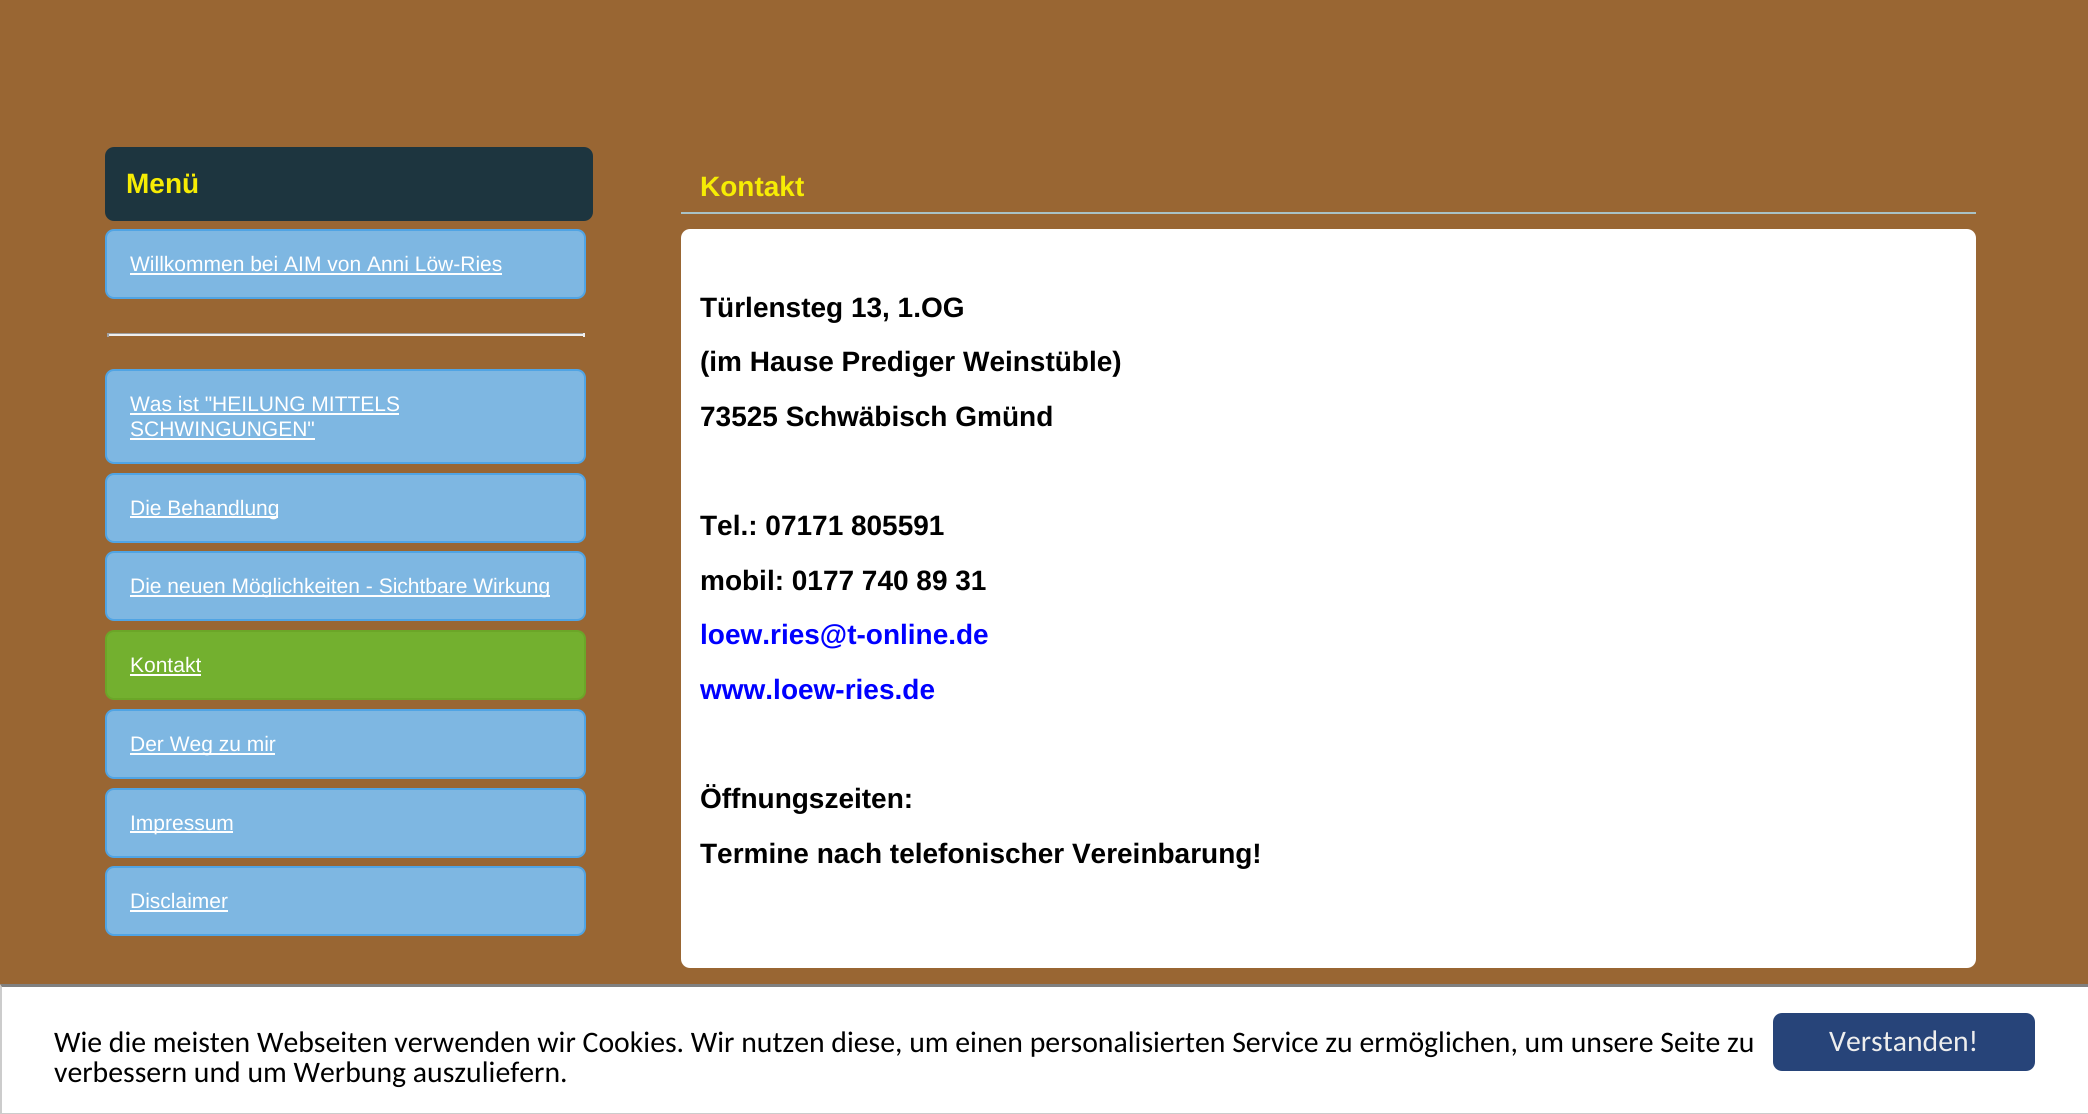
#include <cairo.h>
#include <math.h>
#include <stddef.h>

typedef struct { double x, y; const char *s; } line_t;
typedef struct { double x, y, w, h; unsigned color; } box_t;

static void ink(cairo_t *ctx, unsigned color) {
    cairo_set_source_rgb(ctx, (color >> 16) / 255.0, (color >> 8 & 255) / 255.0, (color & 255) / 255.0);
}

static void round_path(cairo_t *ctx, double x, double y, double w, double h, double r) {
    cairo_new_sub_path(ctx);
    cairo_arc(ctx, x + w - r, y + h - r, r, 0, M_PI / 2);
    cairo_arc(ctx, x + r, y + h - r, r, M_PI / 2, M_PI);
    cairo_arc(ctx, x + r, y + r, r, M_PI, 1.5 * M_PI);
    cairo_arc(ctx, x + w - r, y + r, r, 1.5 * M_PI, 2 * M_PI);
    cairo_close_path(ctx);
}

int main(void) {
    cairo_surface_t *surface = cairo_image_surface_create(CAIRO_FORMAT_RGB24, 2088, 1114);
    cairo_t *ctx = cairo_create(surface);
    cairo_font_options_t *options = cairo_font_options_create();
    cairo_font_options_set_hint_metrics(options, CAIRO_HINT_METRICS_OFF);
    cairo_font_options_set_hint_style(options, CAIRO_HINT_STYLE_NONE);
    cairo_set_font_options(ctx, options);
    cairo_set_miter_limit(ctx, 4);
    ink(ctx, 0x996633);
    cairo_paint(ctx);
    ink(ctx, 0x1D353F);
    round_path(ctx, 105, 147, 488, 74, 9);
    cairo_fill(ctx);
    cairo_select_font_face(ctx, "Liberation Sans", CAIRO_FONT_SLANT_NORMAL, CAIRO_FONT_WEIGHT_BOLD);
    cairo_set_font_size(ctx, 28);
    ink(ctx, 0xF6EC04);
    cairo_move_to(ctx, 126, 193);
    cairo_show_text(ctx, "Menü");
    ink(ctx, 0x7EB7E2);
    round_path(ctx, 106, 230, 479, 68, 8);
    cairo_fill_preserve(ctx);
    ink(ctx, 0x50A4E4);
    cairo_stroke(ctx);
    cairo_select_font_face(ctx, "Liberation Sans", CAIRO_FONT_SLANT_NORMAL, CAIRO_FONT_WEIGHT_NORMAL);
    cairo_set_font_size(ctx, 21);
    ink(ctx, 0xFFFFFF);
    cairo_move_to(ctx, 130, 271);
    cairo_show_text(ctx, "Willkommen bei AIM von Anni Löw-Ries");
    {
        static const box_t items[] = {
            {130, 273, 372, 2, 0xFFFFFF},
            {107, 333, 478, 1, 0x9F9F9F},
            {583, 333, 2, 4, 0xEEEEEE},
            {107, 334, 478, 2, 0xEEEEEE},
            {107, 333, 2, 4, 0x9F9F9F},
        };
        for (size_t i = 0; i < sizeof items / sizeof *items; i++) {
            ink(ctx, items[i].color);
            cairo_rectangle(ctx, items[i].x, items[i].y, items[i].w, items[i].h);
            cairo_fill(ctx);
        }
    }
    ink(ctx, 0x7EB7E2);
    round_path(ctx, 106, 370, 479, 93, 8);
    cairo_fill_preserve(ctx);
    ink(ctx, 0x50A4E4);
    cairo_stroke(ctx);
    ink(ctx, 0xFFFFFF);
    cairo_move_to(ctx, 130, 411);
    cairo_show_text(ctx, "Was ist \"HEILUNG MITTELS");
    cairo_rectangle(ctx, 130, 413, 269, 2);
    cairo_fill(ctx);
    cairo_move_to(ctx, 130, 436);
    cairo_show_text(ctx, "SCHWINGUNGEN\"");
    cairo_rectangle(ctx, 130, 438, 185, 2);
    cairo_fill(ctx);
    ink(ctx, 0x7EB7E2);
    round_path(ctx, 106, 474, 479, 68, 8);
    cairo_fill_preserve(ctx);
    ink(ctx, 0x50A4E4);
    cairo_stroke(ctx);
    ink(ctx, 0xFFFFFF);
    cairo_rectangle(ctx, 130, 516, 148, 2);
    cairo_fill(ctx);
    cairo_move_to(ctx, 130, 515);
    cairo_show_text(ctx, "Die Behandlung");
    ink(ctx, 0x7EB7E2);
    round_path(ctx, 106, 552, 479, 68, 8);
    cairo_fill_preserve(ctx);
    ink(ctx, 0x50A4E4);
    cairo_stroke(ctx);
    ink(ctx, 0xFFFFFF);
    cairo_rectangle(ctx, 130, 595, 420, 2);
    cairo_fill(ctx);
    cairo_move_to(ctx, 130, 593);
    cairo_show_text(ctx, "Die neuen Möglichkeiten - Sichtbare Wirkung");
    ink(ctx, 0x73B02F);
    round_path(ctx, 106, 631, 479, 68, 8);
    cairo_fill_preserve(ctx);
    ink(ctx, 0x6BA628);
    cairo_stroke(ctx);
    ink(ctx, 0xFFFFFF);
    cairo_move_to(ctx, 130, 672);
    cairo_show_text(ctx, "Kontakt");
    cairo_rectangle(ctx, 130, 674, 71, 2);
    cairo_fill(ctx);
    ink(ctx, 0x7EB7E2);
    round_path(ctx, 106, 710, 479, 68, 8);
    cairo_fill_preserve(ctx);
    ink(ctx, 0x50A4E4);
    cairo_stroke(ctx);
    ink(ctx, 0xFFFFFF);
    cairo_rectangle(ctx, 130, 753, 145, 2);
    cairo_fill(ctx);
    cairo_move_to(ctx, 130, 751);
    cairo_show_text(ctx, "Der Weg zu mir");
    ink(ctx, 0x7EB7E2);
    round_path(ctx, 106, 789, 479, 68, 8);
    cairo_fill_preserve(ctx);
    ink(ctx, 0x50A4E4);
    cairo_stroke(ctx);
    ink(ctx, 0xFFFFFF);
    cairo_rectangle(ctx, 130, 831, 103, 2);
    cairo_fill(ctx);
    cairo_move_to(ctx, 130, 830);
    cairo_show_text(ctx, "Impressum");
    ink(ctx, 0x7EB7E2);
    round_path(ctx, 106, 867, 479, 68, 8);
    cairo_fill_preserve(ctx);
    ink(ctx, 0x50A4E4);
    cairo_stroke(ctx);
    ink(ctx, 0xFFFFFF);
    cairo_move_to(ctx, 130, 908);
    cairo_show_text(ctx, "Disclaimer");
    cairo_rectangle(ctx, 130, 910, 98, 2);
    cairo_fill(ctx);
    ink(ctx, 0xA9C2C6);
    cairo_rectangle(ctx, 681, 212, 1295, 2);
    cairo_fill(ctx);
    cairo_select_font_face(ctx, "Liberation Sans", CAIRO_FONT_SLANT_NORMAL, CAIRO_FONT_WEIGHT_BOLD);
    cairo_set_font_size(ctx, 28);
    ink(ctx, 0xF6EC04);
    cairo_move_to(ctx, 700, 196);
    cairo_show_text(ctx, "Kontakt");
    ink(ctx, 0xFFFFFF);
    round_path(ctx, 681, 229, 1295, 739, 9);
    cairo_fill(ctx);
    ink(ctx, 0x000000);
    {
        static const line_t items[] = {
            {700, 317, "Türlensteg 13, 1.OG"},
            {700, 371, "(im Hause Prediger Weinstüble)"},
            {700, 426, "73525 Schwäbisch Gmünd"},
            {700, 535, "Tel.: 07171 805591"},
            {700, 590, "mobil: 0177 740 89 31"},
        };
        for (size_t i = 0; i < sizeof items / sizeof *items; i++) {
            cairo_move_to(ctx, items[i].x, items[i].y);
            cairo_show_text(ctx, items[i].s);
        }
    }
    ink(ctx, 0x0000FF);
    cairo_move_to(ctx, 700, 644);
    cairo_show_text(ctx, "loew.ries@t-online.de");
    cairo_move_to(ctx, 700, 699);
    cairo_show_text(ctx, "www.loew-ries.de");
    ink(ctx, 0x000000);
    cairo_move_to(ctx, 700, 808);
    cairo_show_text(ctx, "Öffnungszeiten:");
    cairo_move_to(ctx, 700, 863);
    cairo_show_text(ctx, "Termine nach telefonischer Vereinbarung!");
    ink(ctx, 0xFFFFFF);
    cairo_rectangle(ctx, 2, 987, 2086, 126);
    cairo_fill(ctx);
    ink(ctx, 0x808080);
    cairo_new_path(ctx);
    cairo_move_to(ctx, 0, 984);
    cairo_line_to(ctx, 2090, 984);
    cairo_line_to(ctx, 2088, 987);
    cairo_line_to(ctx, 2, 987);
    cairo_close_path(ctx);
    cairo_fill(ctx);
    ink(ctx, 0xCCCCCC);
    cairo_rectangle(ctx, 0, 1113, 2088, 1);
    cairo_fill(ctx);
    cairo_new_path(ctx);
    cairo_move_to(ctx, 0, 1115);
    cairo_line_to(ctx, 0, 984);
    cairo_line_to(ctx, 2, 987);
    cairo_line_to(ctx, 2, 1113);
    cairo_close_path(ctx);
    cairo_fill(ctx);
    cairo_select_font_face(ctx, "Carlito", CAIRO_FONT_SLANT_NORMAL, CAIRO_FONT_WEIGHT_NORMAL);
    cairo_set_font_size(ctx, 29.75);
    ink(ctx, 0x000000);
    cairo_move_to(ctx, 54, 1052);
    cairo_show_text(ctx, "Wie die meisten Webseiten verwenden wir Cookies. Wir nutzen diese, um einen personalisierten Service zu ermöglichen, um unsere Seite zu");
    cairo_move_to(ctx, 54, 1082);
    cairo_show_text(ctx, "verbessern und um Werbung auszuliefern.");
    ink(ctx, 0x274479);
    round_path(ctx, 1773, 1013, 262, 58, 9);
    cairo_fill(ctx);
    ink(ctx, 0xEEEEEE);
    cairo_move_to(ctx, 1829, 1051);
    cairo_show_text(ctx, "Verstanden!");
    cairo_surface_write_to_png(surface, "image.png");
    cairo_font_options_destroy(options);
    cairo_destroy(ctx);
    cairo_surface_destroy(surface);
    return 0;
}
